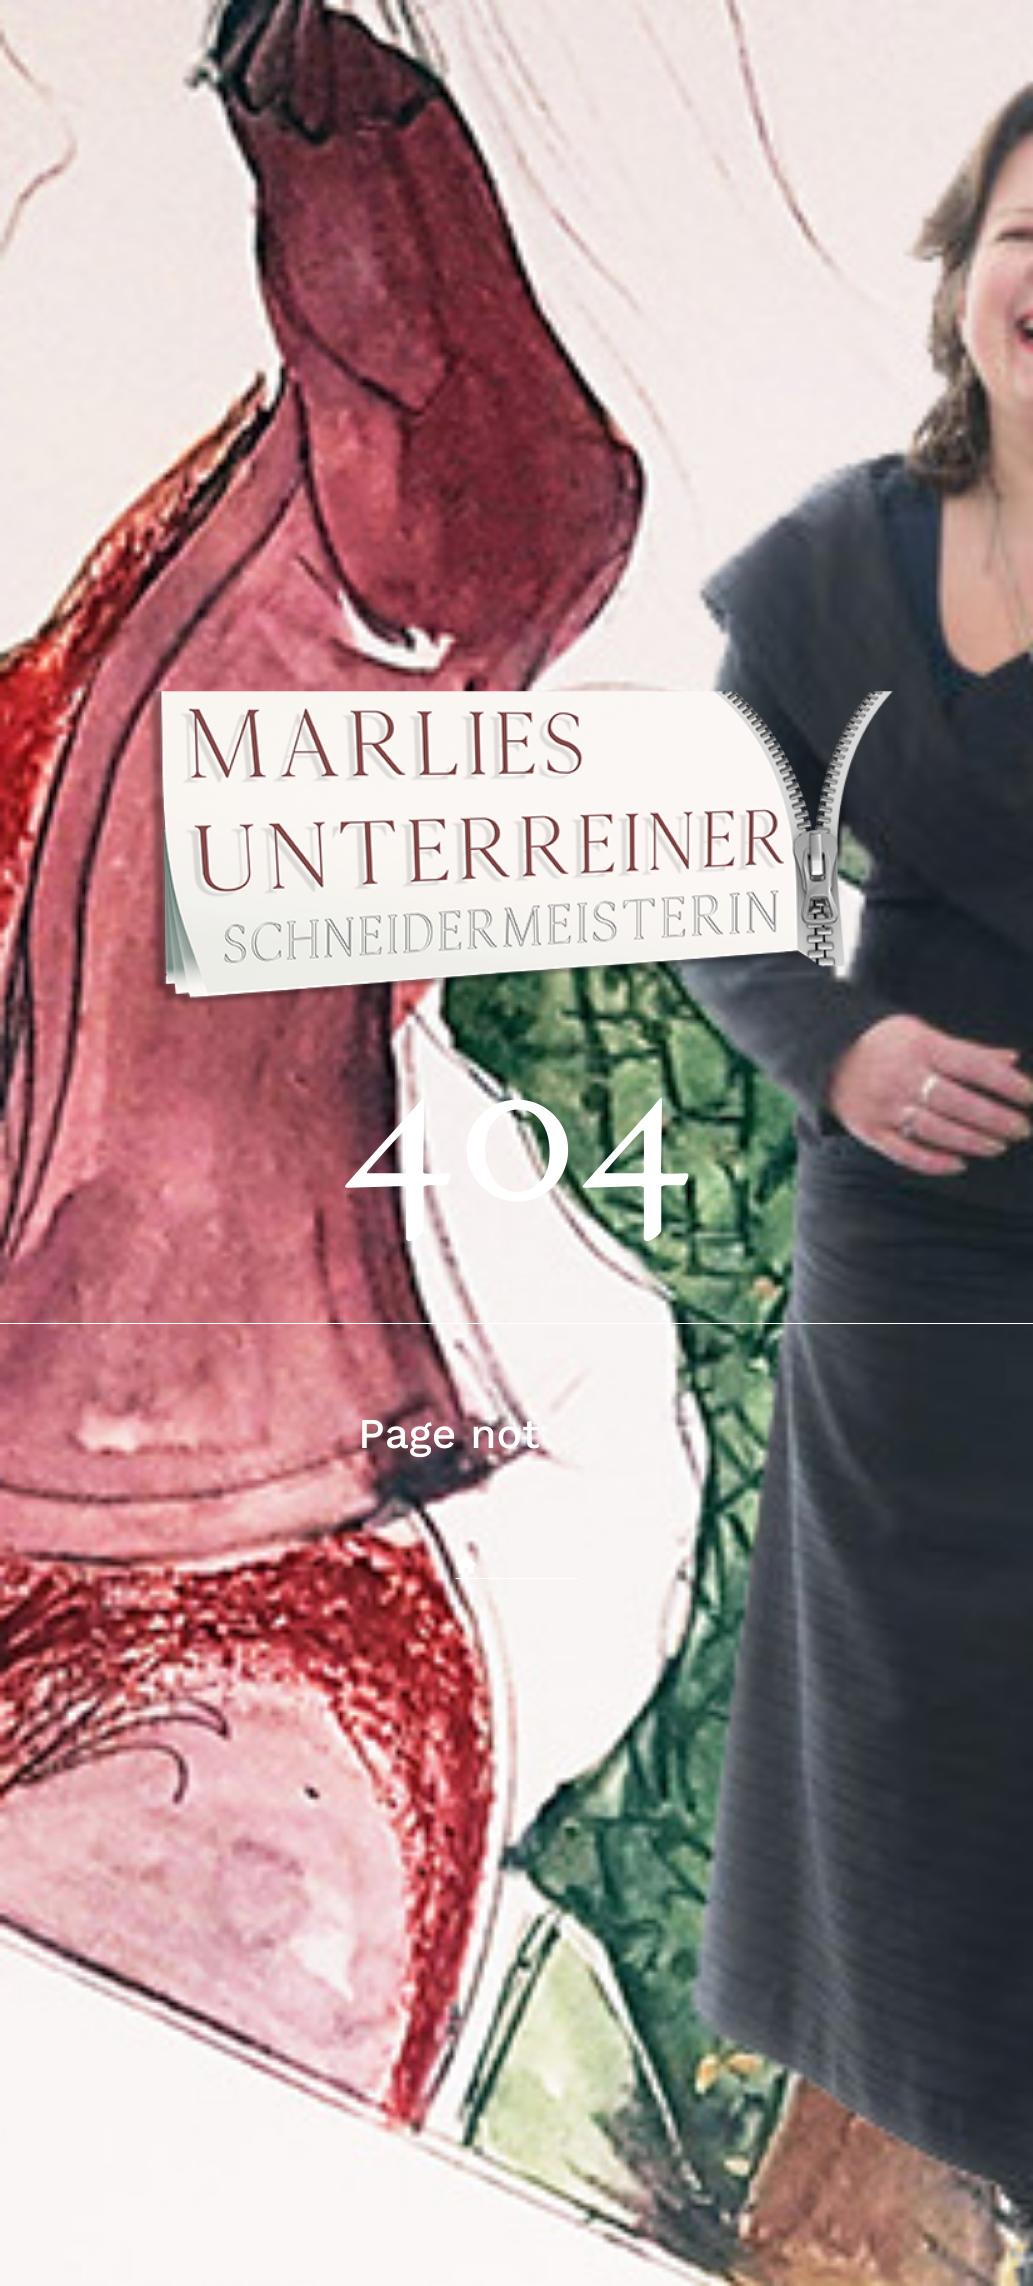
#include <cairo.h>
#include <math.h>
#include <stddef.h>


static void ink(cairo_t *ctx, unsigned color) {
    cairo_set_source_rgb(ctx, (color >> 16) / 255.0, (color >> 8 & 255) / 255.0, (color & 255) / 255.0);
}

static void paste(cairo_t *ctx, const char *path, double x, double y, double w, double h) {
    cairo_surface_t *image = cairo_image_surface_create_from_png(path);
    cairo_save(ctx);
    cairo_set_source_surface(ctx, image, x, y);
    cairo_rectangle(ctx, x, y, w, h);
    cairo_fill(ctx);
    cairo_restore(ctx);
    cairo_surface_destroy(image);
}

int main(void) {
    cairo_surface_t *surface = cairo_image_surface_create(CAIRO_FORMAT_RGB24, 1033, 2286);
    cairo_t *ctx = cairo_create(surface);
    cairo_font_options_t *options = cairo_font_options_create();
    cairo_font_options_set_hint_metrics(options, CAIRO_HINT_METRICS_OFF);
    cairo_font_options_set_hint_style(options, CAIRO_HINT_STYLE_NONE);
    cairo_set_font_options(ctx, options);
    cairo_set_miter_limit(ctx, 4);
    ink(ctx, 0xFFFFFF);
    cairo_paint(ctx);
    paste(ctx, "media/1.png", 0, 0, 1033, 2286);
    paste(ctx, "media/2.png", 147, 691, 746, 316);
    cairo_select_font_face(ctx, "Benne", CAIRO_FONT_SLANT_NORMAL, CAIRO_FONT_WEIGHT_NORMAL);
    cairo_set_font_size(ctx, 238);
    ink(ctx, 0xFFFFFF);
    cairo_move_to(ctx, 340, 1198);
    cairo_show_text(ctx, "404");
    cairo_rectangle(ctx, 0, 1323, 1033, 1);
    cairo_fill(ctx);
    cairo_select_font_face(ctx, "Work Sans Medium", CAIRO_FONT_SLANT_NORMAL, CAIRO_FONT_WEIGHT_NORMAL);
    cairo_set_font_size(ctx, 42.5);
    cairo_move_to(ctx, 358, 1448);
    cairo_show_text(ctx, "Page not");
    cairo_new_path(ctx);
    cairo_move_to(ctx, 579, 1579);
    cairo_line_to(ctx, 455, 1579);
    cairo_line_to(ctx, 456, 1578);
    cairo_line_to(ctx, 578, 1578);
    cairo_close_path(ctx);
    cairo_fill(ctx);
    paste(ctx, "media/3.png", 456, 1556, 20, 18);
    cairo_surface_write_to_png(surface, "image.png");
    cairo_font_options_destroy(options);
    cairo_destroy(ctx);
    cairo_surface_destroy(surface);
    return 0;
}
